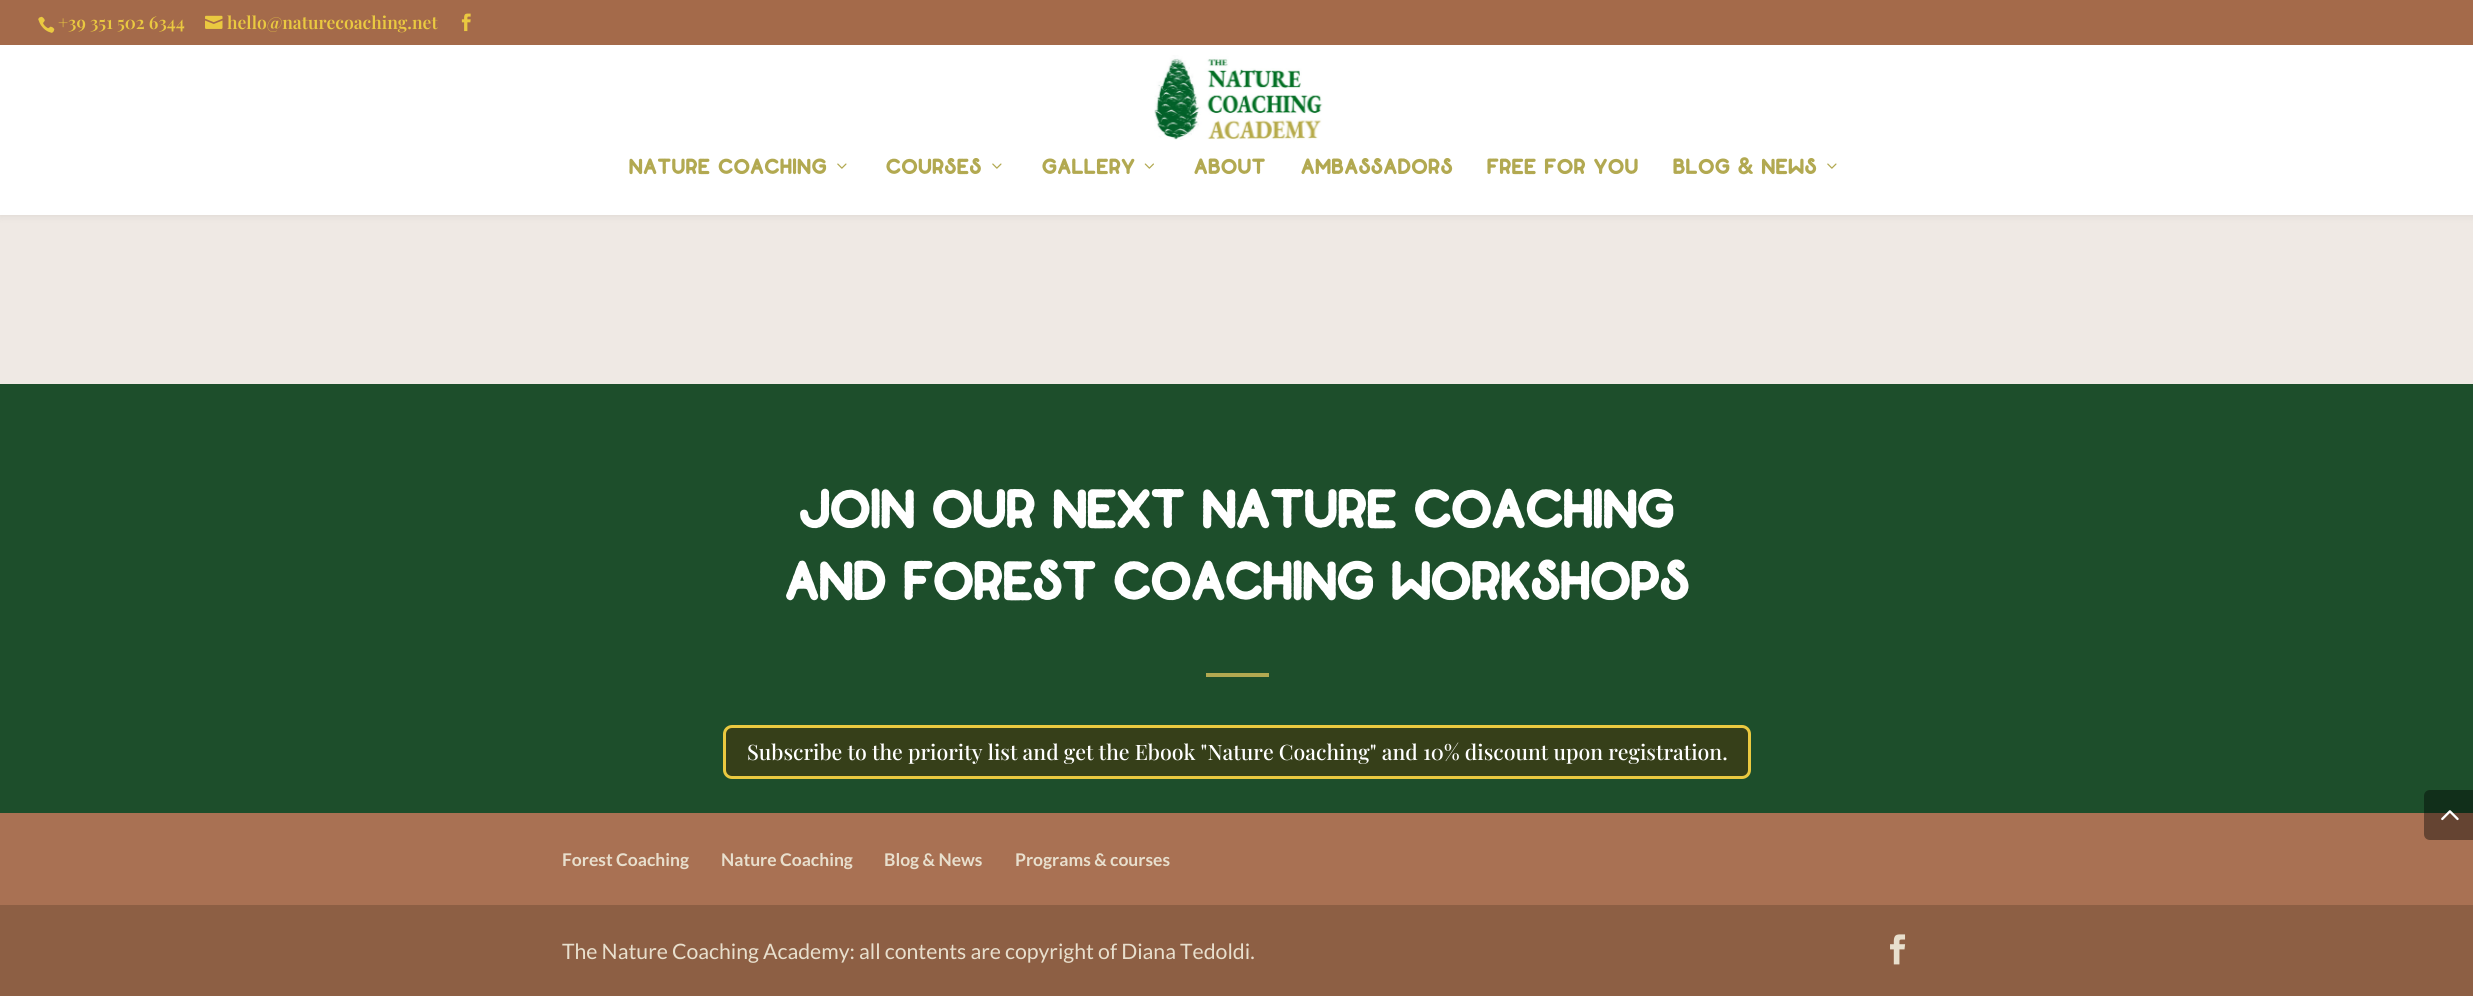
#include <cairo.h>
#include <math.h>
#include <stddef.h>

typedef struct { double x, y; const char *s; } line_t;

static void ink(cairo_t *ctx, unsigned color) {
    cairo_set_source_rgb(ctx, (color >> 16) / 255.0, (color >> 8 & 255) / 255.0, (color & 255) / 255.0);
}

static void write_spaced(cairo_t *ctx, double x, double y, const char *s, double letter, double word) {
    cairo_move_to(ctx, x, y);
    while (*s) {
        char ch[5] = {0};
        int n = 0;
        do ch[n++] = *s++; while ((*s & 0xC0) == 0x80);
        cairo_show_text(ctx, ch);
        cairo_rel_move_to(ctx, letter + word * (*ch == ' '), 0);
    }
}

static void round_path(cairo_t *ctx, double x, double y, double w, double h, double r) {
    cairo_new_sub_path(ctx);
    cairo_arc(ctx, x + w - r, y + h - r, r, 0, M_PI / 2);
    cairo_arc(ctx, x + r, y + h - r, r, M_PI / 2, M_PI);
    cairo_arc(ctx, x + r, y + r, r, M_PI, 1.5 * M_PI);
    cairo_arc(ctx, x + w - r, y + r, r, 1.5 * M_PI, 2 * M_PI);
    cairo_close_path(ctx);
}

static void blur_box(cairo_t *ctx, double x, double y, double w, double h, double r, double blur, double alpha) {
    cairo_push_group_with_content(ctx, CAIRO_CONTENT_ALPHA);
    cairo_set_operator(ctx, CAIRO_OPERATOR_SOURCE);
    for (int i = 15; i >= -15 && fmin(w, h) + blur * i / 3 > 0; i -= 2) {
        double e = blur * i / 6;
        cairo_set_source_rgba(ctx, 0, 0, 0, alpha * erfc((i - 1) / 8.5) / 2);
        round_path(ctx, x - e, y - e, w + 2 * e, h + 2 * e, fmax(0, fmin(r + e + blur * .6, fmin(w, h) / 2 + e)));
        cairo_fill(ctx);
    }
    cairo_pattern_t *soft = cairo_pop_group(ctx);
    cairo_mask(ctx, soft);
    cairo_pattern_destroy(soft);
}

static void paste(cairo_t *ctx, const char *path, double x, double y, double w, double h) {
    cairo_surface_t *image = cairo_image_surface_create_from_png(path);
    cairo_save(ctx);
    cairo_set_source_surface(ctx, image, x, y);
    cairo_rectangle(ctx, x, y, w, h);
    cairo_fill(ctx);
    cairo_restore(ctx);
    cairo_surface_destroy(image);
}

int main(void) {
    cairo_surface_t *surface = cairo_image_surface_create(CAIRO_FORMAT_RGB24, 2473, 996);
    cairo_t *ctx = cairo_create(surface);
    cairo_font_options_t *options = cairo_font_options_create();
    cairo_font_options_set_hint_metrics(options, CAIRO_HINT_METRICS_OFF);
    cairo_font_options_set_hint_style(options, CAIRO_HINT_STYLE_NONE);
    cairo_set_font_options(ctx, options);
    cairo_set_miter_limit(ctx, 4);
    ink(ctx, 0xA97153);
    cairo_paint(ctx);
    ink(ctx, 0xEFE9E4);
    cairo_rectangle(ctx, 0, 215, 2473, 169);
    cairo_fill(ctx);
    ink(ctx, 0x000000);
    blur_box(ctx, 0, 45, 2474, 170, 0, 4.5, 0.1);
    ink(ctx, 0xA46A4A);
    cairo_rectangle(ctx, 0, 0, 2473, 45);
    cairo_fill(ctx);
    paste(ctx, "media/1.png", 38, 16, 17, 17);
    cairo_select_font_face(ctx, "Playfair Display SemiBold", CAIRO_FONT_SLANT_NORMAL, CAIRO_FONT_WEIGHT_NORMAL);
    cairo_set_font_size(ctx, 17.5);
    ink(ctx, 0xEAC940);
    cairo_move_to(ctx, 58, 29);
    cairo_show_text(ctx, "+39 351 502 6344");
    paste(ctx, "media/2.png", 205, 15, 18, 14);
    cairo_move_to(ctx, 227, 29);
    cairo_show_text(ctx, "hello@naturecoaching.net");
    paste(ctx, "media/3.png", 461, 13, 10, 19);
    ink(ctx, 0xFFFFFF);
    cairo_rectangle(ctx, 0, 45, 2473, 170);
    cairo_fill(ctx);
    paste(ctx, "media/4.png", 1154, 55, 169, 85);
    cairo_select_font_face(ctx, "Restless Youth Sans", CAIRO_FONT_SLANT_NORMAL, CAIRO_FONT_WEIGHT_BOLD);
    cairo_set_font_size(ctx, 21.25);
    ink(ctx, 0xB2A951);
    write_spaced(ctx, 629, 174, "NATURE COACHING", 1.25, 0);
    paste(ctx, "media/5.png", 837, 163, 10, 6);
    write_spaced(ctx, 886, 174, "COURSES", 1.25, 0);
    paste(ctx, "media/5.png", 992, 163, 10, 6);
    write_spaced(ctx, 1042, 174, "GALLERY", 1.25, 0);
    paste(ctx, "media/6.png", 1144, 163, 10, 6);
    {
        static const line_t items[] = {
            {1194, 174, "ABOUT"},
            {1301, 174, "AMBASSADORS"},
            {1487, 174, "FREE FOR YOU"},
            {1673, 174, "BLOG & NEWS"},
        };
        for (size_t i = 0; i < sizeof items / sizeof *items; i++) {
            write_spaced(ctx, items[i].x, items[i].y, items[i].s, 1.25, 0);
        }
    }
    paste(ctx, "media/5.png", 1827, 163, 10, 6);
    ink(ctx, 0x1D4E2B);
    cairo_rectangle(ctx, 0, 384, 2473, 429);
    cairo_fill(ctx);
    cairo_set_font_size(ctx, 53.75);
    ink(ctx, 0xFFFFFF);
    write_spaced(ctx, 799, 528, "JOIN OUR NEXT NATURE COACHING", 1.25, 0);
    write_spaced(ctx, 785, 600, "AND FOREST COACHING WORKSHOPS", 1.25, 0);
    ink(ctx, 0xB2A951);
    cairo_rectangle(ctx, 1206, 673, 63, 4);
    cairo_fill(ctx);
    ink(ctx, 0x363F19);
    round_path(ctx, 724.5, 726.5, 1025, 51, 7.5);
    cairo_fill_preserve(ctx);
    ink(ctx, 0xEAC940);
    cairo_set_line_width(ctx, 3);
    cairo_stroke(ctx);
    cairo_select_font_face(ctx, "Playfair Display Medium", CAIRO_FONT_SLANT_NORMAL, CAIRO_FONT_WEIGHT_NORMAL);
    cairo_set_font_size(ctx, 21.25);
    ink(ctx, 0xFFFFFF);
    cairo_move_to(ctx, 747, 760);
    cairo_show_text(ctx, "Subscribe to the priority list and get the Ebook \"Nature Coaching\" and 10% discount upon registration.");
    cairo_set_source_rgba(ctx, 0, 0, 0, 0.4);
    cairo_new_path(ctx);
    cairo_move_to(ctx, 2430, 790);
    cairo_line_to(ctx, 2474, 790);
    cairo_line_to(ctx, 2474, 840);
    cairo_line_to(ctx, 2430, 840);
    cairo_curve_to(ctx, 2426.5, 840, 2424, 837.5, 2424, 834);
    cairo_line_to(ctx, 2424, 796);
    cairo_curve_to(ctx, 2424, 792.5, 2426.5, 790, 2430, 790);
    cairo_close_path(ctx);
    cairo_fill(ctx);
    paste(ctx, "media/7.png", 2441, 810, 18, 11);
    cairo_select_font_face(ctx, "Lato", CAIRO_FONT_SLANT_NORMAL, CAIRO_FONT_WEIGHT_BOLD);
    cairo_set_font_size(ctx, 17.5);
    ink(ctx, 0xE8DFCD);
    {
        static const line_t items[] = {
            {562, 866, "Forest Coaching"},
            {721, 866, "Nature Coaching"},
            {884, 866, "Blog & News"},
            {1015, 866, "Programs & courses"},
        };
        for (size_t i = 0; i < sizeof items / sizeof *items; i++) {
            cairo_move_to(ctx, items[i].x, items[i].y);
            cairo_show_text(ctx, items[i].s);
        }
    }
    ink(ctx, 0x8D5F44);
    cairo_rectangle(ctx, 0, 905, 2473, 91);
    cairo_fill(ctx);
    cairo_select_font_face(ctx, "Lato", CAIRO_FONT_SLANT_NORMAL, CAIRO_FONT_WEIGHT_NORMAL);
    cairo_set_font_size(ctx, 21.25);
    ink(ctx, 0xE8DFCD);
    cairo_move_to(ctx, 562, 959);
    cairo_show_text(ctx, "The Nature Coaching Academy: all contents are copyright of Diana Tedoldi.");
    paste(ctx, "media/8.png", 1890, 934, 16, 31);
    cairo_surface_write_to_png(surface, "image.png");
    cairo_font_options_destroy(options);
    cairo_destroy(ctx);
    cairo_surface_destroy(surface);
    return 0;
}
